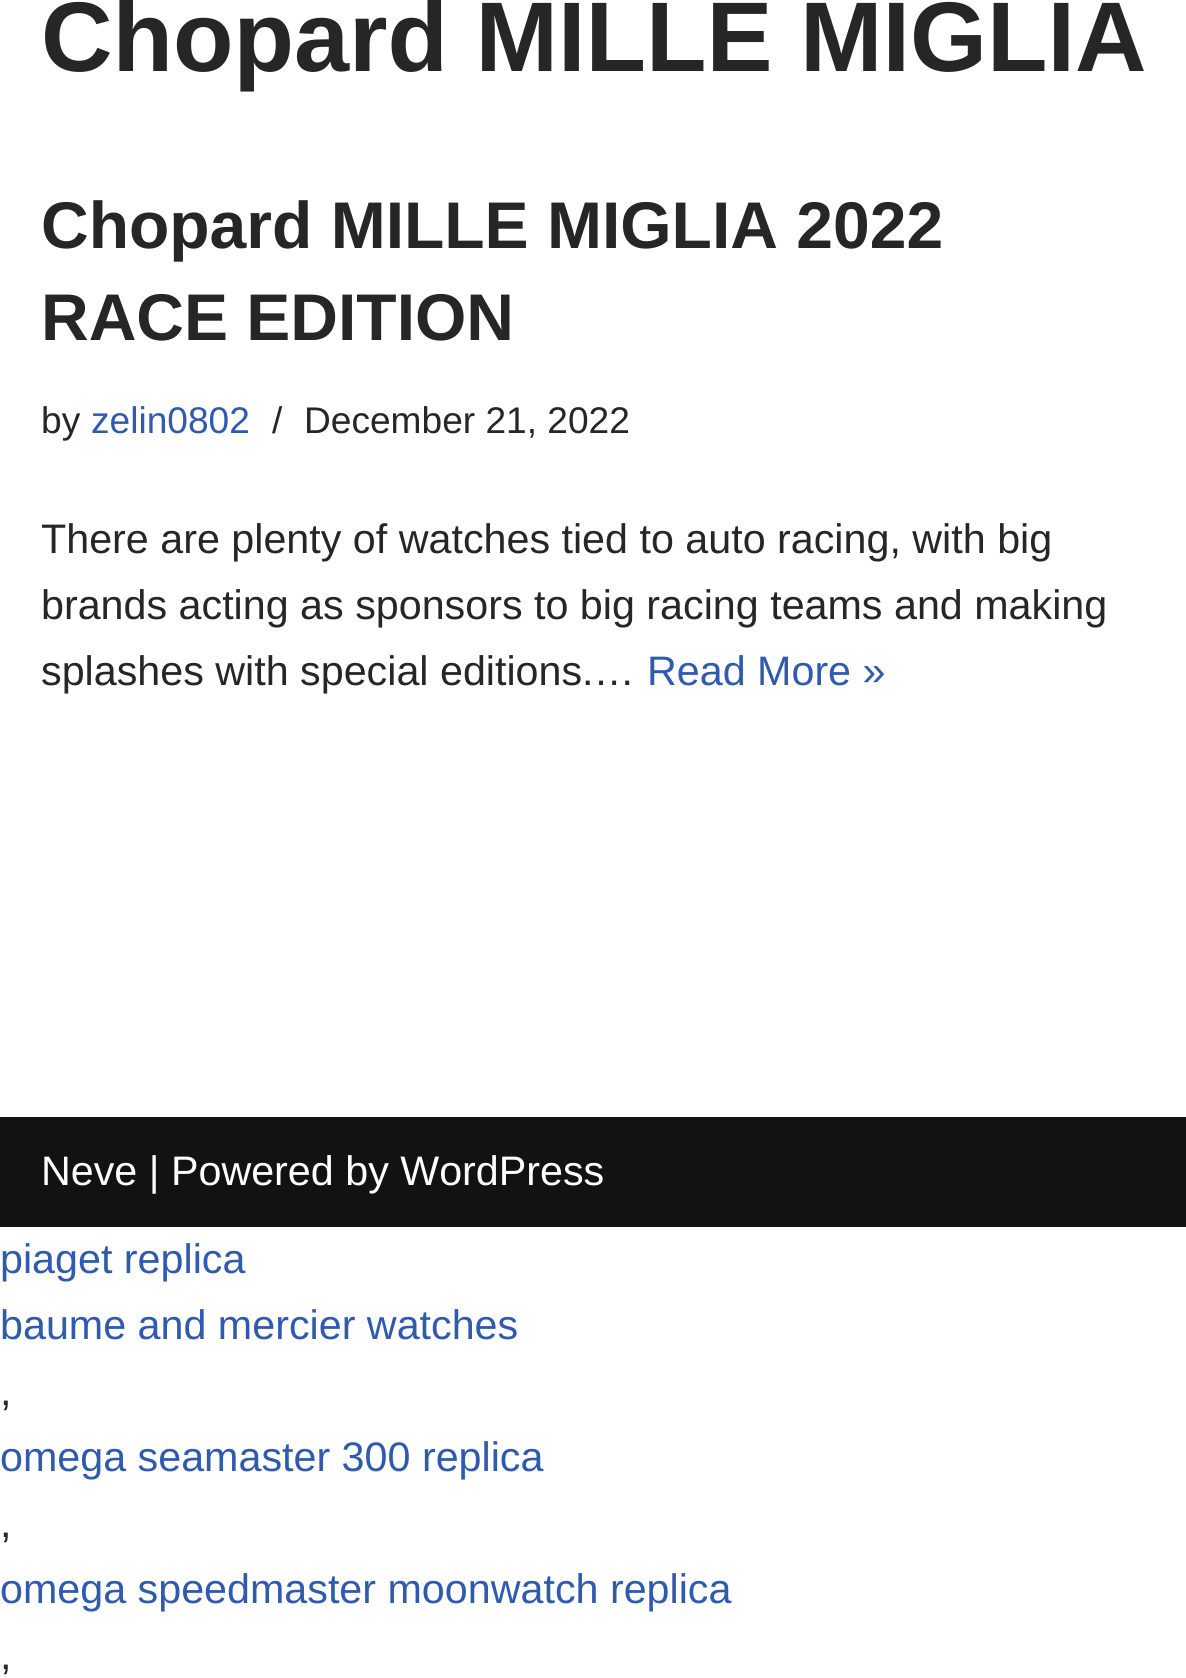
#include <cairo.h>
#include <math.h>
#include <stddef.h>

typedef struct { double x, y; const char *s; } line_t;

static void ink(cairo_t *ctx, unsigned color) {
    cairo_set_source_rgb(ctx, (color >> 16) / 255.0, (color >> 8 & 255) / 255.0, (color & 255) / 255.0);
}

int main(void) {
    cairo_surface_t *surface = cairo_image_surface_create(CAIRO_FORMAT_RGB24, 1186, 1678);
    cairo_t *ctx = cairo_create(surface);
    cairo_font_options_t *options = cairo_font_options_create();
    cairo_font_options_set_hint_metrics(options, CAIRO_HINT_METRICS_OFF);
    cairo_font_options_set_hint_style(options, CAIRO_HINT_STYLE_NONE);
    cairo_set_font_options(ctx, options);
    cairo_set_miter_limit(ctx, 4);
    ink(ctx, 0xFFFFFF);
    cairo_paint(ctx);
    cairo_select_font_face(ctx, "Liberation Sans", CAIRO_FONT_SLANT_NORMAL, CAIRO_FONT_WEIGHT_BOLD);
    cairo_set_font_size(ctx, 99);
    ink(ctx, 0x272626);
    cairo_move_to(ctx, 41, 71);
    cairo_show_text(ctx, "Chopard MILLE MIGLIA");
    cairo_set_font_size(ctx, 66);
    cairo_move_to(ctx, 41, 248);
    cairo_show_text(ctx, "Chopard MILLE MIGLIA 2022");
    cairo_move_to(ctx, 41, 340);
    cairo_show_text(ctx, "RACE EDITION");
    cairo_select_font_face(ctx, "Liberation Sans", CAIRO_FONT_SLANT_NORMAL, CAIRO_FONT_WEIGHT_NORMAL);
    cairo_set_font_size(ctx, 37.1);
    cairo_move_to(ctx, 41, 433);
    cairo_show_text(ctx, "by");
    ink(ctx, 0x2F5AAE);
    cairo_move_to(ctx, 91, 433);
    cairo_show_text(ctx, "zelin0802");
    ink(ctx, 0x272626);
    cairo_move_to(ctx, 272, 433);
    cairo_show_text(ctx, "/");
    cairo_move_to(ctx, 304, 433);
    cairo_show_text(ctx, "December 21, 2022");
    cairo_set_font_size(ctx, 41.25);
    {
        static const line_t items[] = {
            {41, 553, "There are plenty of watches tied to auto racing, with big"},
            {41, 619, "brands acting as sponsors to big racing teams and making"},
            {41, 685, "splashes with special editions.…"},
        };
        for (size_t i = 0; i < sizeof items / sizeof *items; i++) {
            cairo_move_to(ctx, items[i].x, items[i].y);
            cairo_show_text(ctx, items[i].s);
        }
    }
    ink(ctx, 0x2F5AAE);
    cairo_move_to(ctx, 647, 685);
    cairo_show_text(ctx, "Read More »");
    ink(ctx, 0x121212);
    cairo_rectangle(ctx, 0, 1117, 1186, 110);
    cairo_fill(ctx);
    ink(ctx, 0xFFFFFF);
    cairo_move_to(ctx, 41, 1185);
    cairo_show_text(ctx, "Neve | Powered by WordPress");
    ink(ctx, 0x2F5AAE);
    cairo_move_to(ctx, 0, 1273);
    cairo_show_text(ctx, "piaget replica");
    cairo_move_to(ctx, 0, 1339);
    cairo_show_text(ctx, "baume and mercier watches");
    ink(ctx, 0x272626);
    cairo_move_to(ctx, 0, 1405);
    cairo_show_text(ctx, ",");
    ink(ctx, 0x2F5AAE);
    cairo_move_to(ctx, 0, 1471);
    cairo_show_text(ctx, "omega seamaster 300 replica");
    ink(ctx, 0x272626);
    cairo_move_to(ctx, 0, 1537);
    cairo_show_text(ctx, ",");
    ink(ctx, 0x2F5AAE);
    cairo_move_to(ctx, 0, 1603);
    cairo_show_text(ctx, "omega speedmaster moonwatch replica");
    ink(ctx, 0x272626);
    cairo_move_to(ctx, 0, 1669);
    cairo_show_text(ctx, ",");
    cairo_surface_write_to_png(surface, "image.png");
    cairo_font_options_destroy(options);
    cairo_destroy(ctx);
    cairo_surface_destroy(surface);
    return 0;
}
